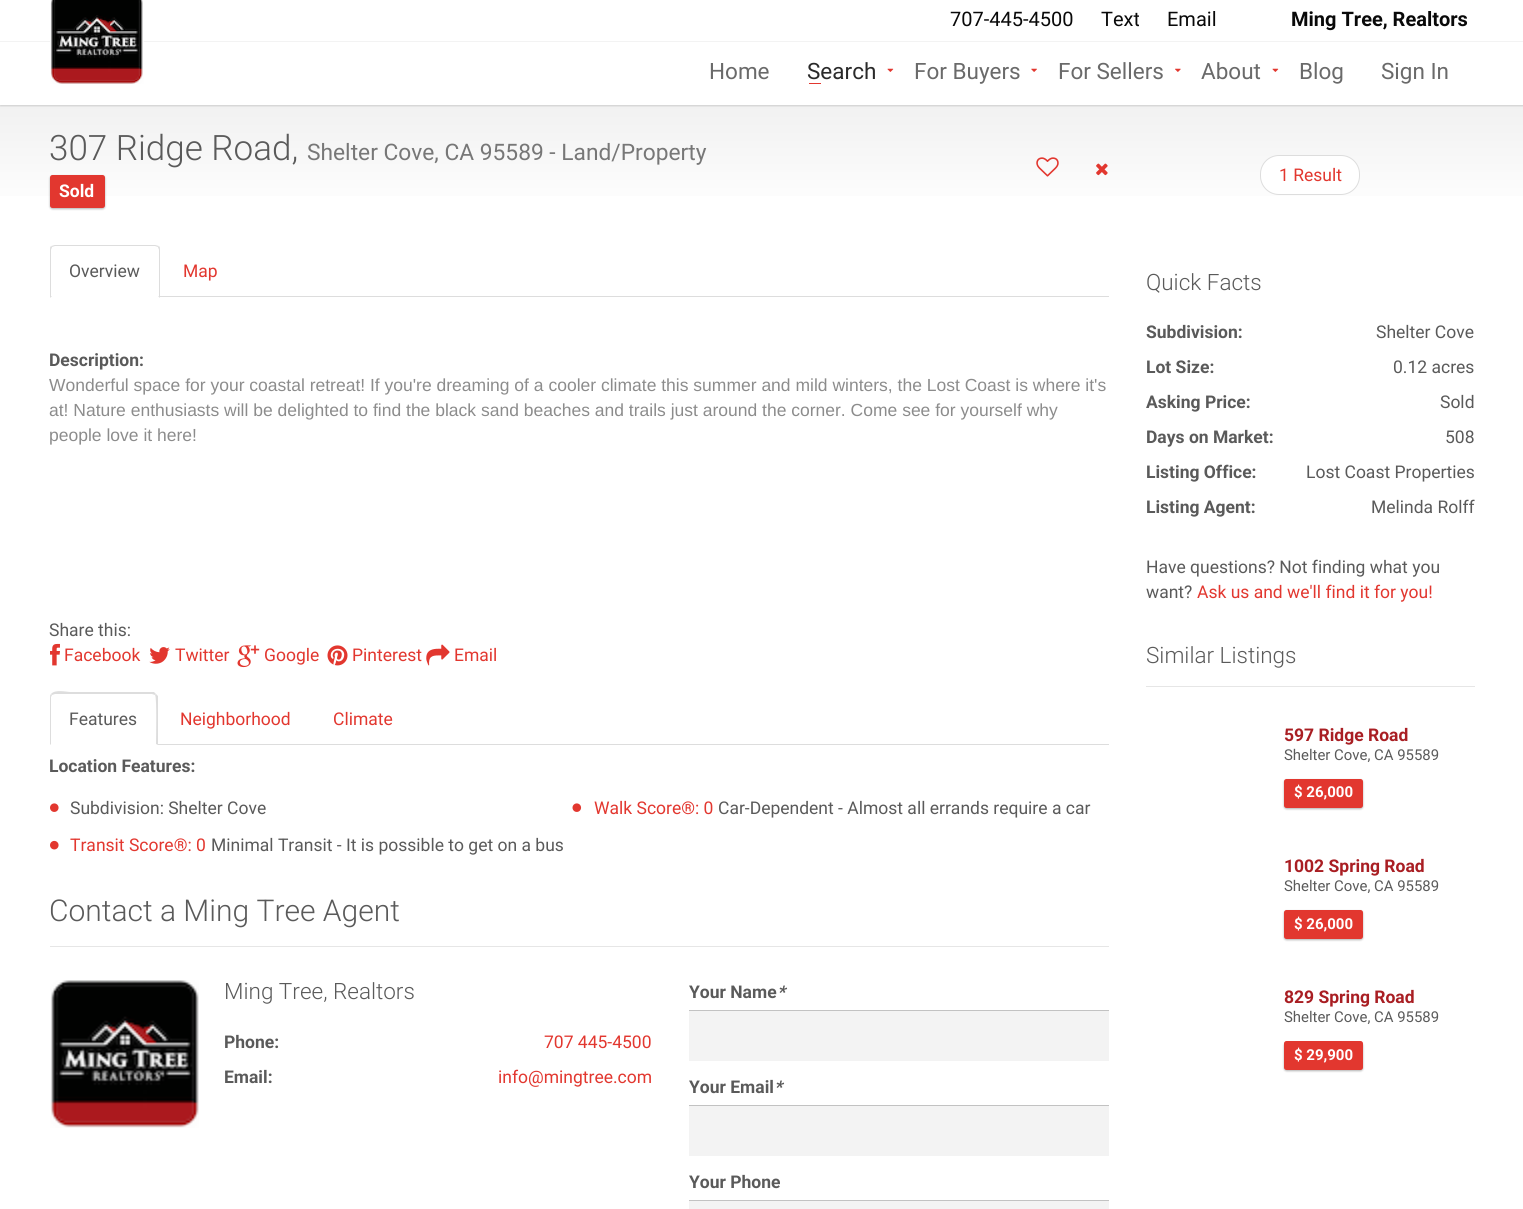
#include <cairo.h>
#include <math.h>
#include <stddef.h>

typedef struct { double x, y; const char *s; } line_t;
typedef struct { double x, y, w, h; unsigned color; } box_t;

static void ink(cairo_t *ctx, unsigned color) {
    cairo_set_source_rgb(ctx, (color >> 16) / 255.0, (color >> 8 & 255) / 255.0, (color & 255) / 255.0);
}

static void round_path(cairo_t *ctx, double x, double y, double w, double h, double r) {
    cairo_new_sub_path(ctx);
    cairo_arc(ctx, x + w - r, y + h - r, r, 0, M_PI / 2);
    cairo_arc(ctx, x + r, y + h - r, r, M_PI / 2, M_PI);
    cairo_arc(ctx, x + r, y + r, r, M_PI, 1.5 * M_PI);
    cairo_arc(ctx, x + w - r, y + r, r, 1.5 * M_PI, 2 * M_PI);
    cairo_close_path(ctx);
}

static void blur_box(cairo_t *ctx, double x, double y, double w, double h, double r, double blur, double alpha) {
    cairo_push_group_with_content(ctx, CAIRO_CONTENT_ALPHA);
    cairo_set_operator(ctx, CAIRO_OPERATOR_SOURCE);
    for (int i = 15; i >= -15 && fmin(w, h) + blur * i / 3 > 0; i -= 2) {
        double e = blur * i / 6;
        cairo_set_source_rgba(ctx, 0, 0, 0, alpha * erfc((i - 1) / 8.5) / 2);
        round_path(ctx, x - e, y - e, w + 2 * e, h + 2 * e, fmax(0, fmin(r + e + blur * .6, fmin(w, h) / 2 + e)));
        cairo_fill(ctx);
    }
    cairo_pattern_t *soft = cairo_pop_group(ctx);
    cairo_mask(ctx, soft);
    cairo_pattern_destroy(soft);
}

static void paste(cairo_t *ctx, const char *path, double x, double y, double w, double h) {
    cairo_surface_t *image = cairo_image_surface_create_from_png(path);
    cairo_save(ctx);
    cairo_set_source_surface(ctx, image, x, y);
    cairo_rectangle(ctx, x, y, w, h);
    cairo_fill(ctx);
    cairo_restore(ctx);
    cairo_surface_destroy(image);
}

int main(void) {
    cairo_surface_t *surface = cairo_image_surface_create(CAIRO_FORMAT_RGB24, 1523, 1209);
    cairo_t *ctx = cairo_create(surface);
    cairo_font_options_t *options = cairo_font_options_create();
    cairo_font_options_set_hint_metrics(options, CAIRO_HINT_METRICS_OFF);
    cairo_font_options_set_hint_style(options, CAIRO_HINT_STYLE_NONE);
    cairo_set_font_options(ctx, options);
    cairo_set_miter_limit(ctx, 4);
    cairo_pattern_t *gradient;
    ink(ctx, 0xFFFFFF);
    cairo_paint(ctx);
    gradient = cairo_pattern_create_linear(762, 105, 762, 243);
    cairo_pattern_add_color_stop_rgba(gradient, 0, 0.945, 0.945, 0.945, 1);
    cairo_pattern_add_color_stop_rgba(gradient, 0.8, 1, 1, 1, 1);
    cairo_set_source(ctx, gradient);
    cairo_pattern_destroy(gradient);
    cairo_rectangle(ctx, 0, 105, 1523, 91);
    cairo_fill(ctx);
    cairo_save(ctx);
    cairo_rectangle(ctx, 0, 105, 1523, 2);
    cairo_clip(ctx);
    ink(ctx, 0x000000);
    blur_box(ctx, 0, 1, 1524, 105, 0, 1, 0.15);
    cairo_restore(ctx);
    ink(ctx, 0xF3F3F3);
    cairo_rectangle(ctx, 0, 41, 1523, 1);
    cairo_fill(ctx);
    cairo_select_font_face(ctx, "Roboto", CAIRO_FONT_SLANT_NORMAL, CAIRO_FONT_WEIGHT_NORMAL);
    cairo_set_font_size(ctx, 20);
    ink(ctx, 0x090909);
    {
        static const line_t items[] = {
            {950, 26, "707-445-4500"},
            {1101, 26, "Text"},
            {1167, 26, "Email"},
        };
        for (size_t i = 0; i < sizeof items / sizeof *items; i++) {
            cairo_move_to(ctx, items[i].x, items[i].y);
            cairo_show_text(ctx, items[i].s);
        }
    }
    cairo_select_font_face(ctx, "Roboto", CAIRO_FONT_SLANT_NORMAL, CAIRO_FONT_WEIGHT_BOLD);
    cairo_move_to(ctx, 1291, 26);
    cairo_show_text(ctx, "Ming Tree, Realtors");
    paste(ctx, "media/1.png", 50, 0, 94, 84);
    cairo_select_font_face(ctx, "Roboto", CAIRO_FONT_SLANT_NORMAL, CAIRO_FONT_WEIGHT_NORMAL);
    cairo_set_font_size(ctx, 22.5);
    ink(ctx, 0x6A6A6A);
    cairo_move_to(ctx, 709, 79);
    cairo_show_text(ctx, "Home");
    ink(ctx, 0x2A2A2A);
    cairo_move_to(ctx, 807, 79);
    cairo_show_text(ctx, "Search");
    ink(ctx, 0xE2372F);
    cairo_rectangle(ctx, 809, 83, 12, 1);
    cairo_fill(ctx);
    paste(ctx, "media/2.png", 887, 68, 7, 4);
    ink(ctx, 0x6A6A6A);
    cairo_move_to(ctx, 914, 79);
    cairo_show_text(ctx, "For Buyers");
    paste(ctx, "media/3.png", 1031, 68, 6, 4);
    cairo_move_to(ctx, 1058, 79);
    cairo_show_text(ctx, "For Sellers");
    paste(ctx, "media/4.png", 1175, 68, 6, 4);
    cairo_move_to(ctx, 1201, 79);
    cairo_show_text(ctx, "About");
    paste(ctx, "media/2.png", 1272, 68, 7, 4);
    cairo_move_to(ctx, 1299, 79);
    cairo_show_text(ctx, "Blog");
    cairo_move_to(ctx, 1381, 79);
    cairo_show_text(ctx, "Sign In");
    cairo_select_font_face(ctx, "Roboto Light", CAIRO_FONT_SLANT_NORMAL, CAIRO_FONT_WEIGHT_NORMAL);
    cairo_set_font_size(ctx, 35);
    ink(ctx, 0x5A5A5A);
    cairo_move_to(ctx, 49, 160);
    cairo_show_text(ctx, "307 Ridge Road,");
    cairo_select_font_face(ctx, "Roboto", CAIRO_FONT_SLANT_NORMAL, CAIRO_FONT_WEIGHT_NORMAL);
    cairo_set_font_size(ctx, 22.75);
    ink(ctx, 0x777777);
    cairo_move_to(ctx, 307, 160);
    cairo_show_text(ctx, "Shelter Cove, CA 95589 - Land/Property");
    paste(ctx, "media/5.png", 1036, 157, 23, 20);
    paste(ctx, "media/6.png", 1096, 163, 12, 13);
    ink(ctx, 0x000000);
    blur_box(ctx, 50, 176, 55, 33, 2.5, 1, 0.3);
    ink(ctx, 0xE2372F);
    round_path(ctx, 50, 175, 55, 33, 2.5);
    cairo_fill(ctx);
    cairo_select_font_face(ctx, "Roboto", CAIRO_FONT_SLANT_NORMAL, CAIRO_FONT_WEIGHT_BOLD);
    cairo_set_font_size(ctx, 17.5);
    ink(ctx, 0xFFFFFF);
    cairo_move_to(ctx, 59, 197);
    cairo_show_text(ctx, "Sold");
    round_path(ctx, 1260.5, 155.5, 99, 39, 18.5);
    cairo_fill_preserve(ctx);
    ink(ctx, 0xDDDDDD);
    cairo_set_line_width(ctx, 1);
    cairo_stroke(ctx);
    cairo_select_font_face(ctx, "Roboto", CAIRO_FONT_SLANT_NORMAL, CAIRO_FONT_WEIGHT_NORMAL);
    ink(ctx, 0xE2372F);
    cairo_move_to(ctx, 1279, 181);
    cairo_show_text(ctx, "1 Result");
    ink(ctx, 0xDDDDDD);
    cairo_rectangle(ctx, 160, 296, 949, 1);
    cairo_fill(ctx);
    cairo_new_path(ctx);
    cairo_move_to(ctx, 55, 245);
    cairo_curve_to(ctx, 54, 245, 52, 246, 51, 246);
    cairo_line_to(ctx, 52, 247);
    cairo_line_to(ctx, 55, 246);
    cairo_line_to(ctx, 155, 246);
    cairo_line_to(ctx, 158, 247);
    cairo_line_to(ctx, 159, 246);
    cairo_curve_to(ctx, 158, 246, 156, 245, 155, 245);
    cairo_close_path(ctx);
    cairo_fill(ctx);
    cairo_new_path(ctx);
    cairo_move_to(ctx, 160, 298);
    cairo_line_to(ctx, 160, 250);
    cairo_curve_to(ctx, 160, 248, 160, 247, 159, 246);
    cairo_line_to(ctx, 158, 247);
    cairo_curve_to(ctx, 158, 248, 159, 249, 159, 250);
    cairo_line_to(ctx, 159, 296);
    cairo_line_to(ctx, 158, 296);
    cairo_close_path(ctx);
    cairo_fill(ctx);
    cairo_new_path(ctx);
    cairo_move_to(ctx, 50, 298);
    cairo_line_to(ctx, 52, 296);
    cairo_line_to(ctx, 51, 296);
    cairo_line_to(ctx, 51, 250);
    cairo_curve_to(ctx, 51, 249, 52, 248, 52, 247);
    cairo_line_to(ctx, 51, 246);
    cairo_curve_to(ctx, 50, 247, 50, 248, 50, 250);
    cairo_close_path(ctx);
    cairo_fill(ctx);
    ink(ctx, 0x5A5A5A);
    cairo_move_to(ctx, 69, 277);
    cairo_show_text(ctx, "Overview");
    ink(ctx, 0xE2372F);
    cairo_move_to(ctx, 183, 277);
    cairo_show_text(ctx, "Map");
    cairo_select_font_face(ctx, "Roboto", CAIRO_FONT_SLANT_NORMAL, CAIRO_FONT_WEIGHT_BOLD);
    ink(ctx, 0x5A5A5A);
    cairo_move_to(ctx, 49, 366);
    cairo_show_text(ctx, "Description:");
    cairo_select_font_face(ctx, "Liberation Sans", CAIRO_FONT_SLANT_NORMAL, CAIRO_FONT_WEIGHT_NORMAL);
    ink(ctx, 0x8C8C8C);
    {
        static const line_t items[] = {
            {49, 391, "Wonderful space for your coastal retreat! If you're dreaming of a cooler climate this summer and mild winters, the Lost Coast is where it's"},
            {49, 416, "at! Nature enthusiasts will be delighted to find the black sand beaches and trails just around the corner. Come see for yourself why"},
            {49, 441, "people love it here!"},
        };
        for (size_t i = 0; i < sizeof items / sizeof *items; i++) {
            cairo_move_to(ctx, items[i].x, items[i].y);
            cairo_show_text(ctx, items[i].s);
        }
    }
    cairo_select_font_face(ctx, "Roboto Light", CAIRO_FONT_SLANT_NORMAL, CAIRO_FONT_WEIGHT_NORMAL);
    cairo_set_font_size(ctx, 22.5);
    ink(ctx, 0x5A5A5A);
    cairo_move_to(ctx, 1146, 290);
    cairo_show_text(ctx, "Quick Facts");
    cairo_select_font_face(ctx, "Roboto", CAIRO_FONT_SLANT_NORMAL, CAIRO_FONT_WEIGHT_BOLD);
    cairo_set_font_size(ctx, 17.5);
    cairo_move_to(ctx, 1146, 338);
    cairo_show_text(ctx, "Subdivision:");
    cairo_select_font_face(ctx, "Roboto", CAIRO_FONT_SLANT_NORMAL, CAIRO_FONT_WEIGHT_NORMAL);
    cairo_move_to(ctx, 1376, 338);
    cairo_show_text(ctx, "Shelter Cove");
    cairo_select_font_face(ctx, "Roboto", CAIRO_FONT_SLANT_NORMAL, CAIRO_FONT_WEIGHT_BOLD);
    cairo_move_to(ctx, 1146, 373);
    cairo_show_text(ctx, "Lot Size:");
    cairo_select_font_face(ctx, "Roboto", CAIRO_FONT_SLANT_NORMAL, CAIRO_FONT_WEIGHT_NORMAL);
    cairo_move_to(ctx, 1393, 373);
    cairo_show_text(ctx, "0.12 acres");
    cairo_select_font_face(ctx, "Roboto", CAIRO_FONT_SLANT_NORMAL, CAIRO_FONT_WEIGHT_BOLD);
    cairo_move_to(ctx, 1146, 408);
    cairo_show_text(ctx, "Asking Price:");
    cairo_select_font_face(ctx, "Roboto", CAIRO_FONT_SLANT_NORMAL, CAIRO_FONT_WEIGHT_NORMAL);
    cairo_move_to(ctx, 1440, 408);
    cairo_show_text(ctx, "Sold");
    cairo_select_font_face(ctx, "Roboto", CAIRO_FONT_SLANT_NORMAL, CAIRO_FONT_WEIGHT_BOLD);
    cairo_move_to(ctx, 1146, 443);
    cairo_show_text(ctx, "Days on Market:");
    cairo_select_font_face(ctx, "Roboto", CAIRO_FONT_SLANT_NORMAL, CAIRO_FONT_WEIGHT_NORMAL);
    cairo_move_to(ctx, 1445, 443);
    cairo_show_text(ctx, "508");
    cairo_select_font_face(ctx, "Roboto", CAIRO_FONT_SLANT_NORMAL, CAIRO_FONT_WEIGHT_BOLD);
    cairo_move_to(ctx, 1146, 478);
    cairo_show_text(ctx, "Listing Office:");
    cairo_select_font_face(ctx, "Roboto", CAIRO_FONT_SLANT_NORMAL, CAIRO_FONT_WEIGHT_NORMAL);
    cairo_move_to(ctx, 1306, 478);
    cairo_show_text(ctx, "Lost Coast Properties");
    cairo_select_font_face(ctx, "Roboto", CAIRO_FONT_SLANT_NORMAL, CAIRO_FONT_WEIGHT_BOLD);
    cairo_move_to(ctx, 1146, 513);
    cairo_show_text(ctx, "Listing Agent:");
    cairo_select_font_face(ctx, "Roboto", CAIRO_FONT_SLANT_NORMAL, CAIRO_FONT_WEIGHT_NORMAL);
    {
        static const line_t items[] = {
            {1371, 513, "Melinda Rolff"},
            {1146, 573, "Have questions? Not finding what you"},
            {1146, 598, "want?"},
        };
        for (size_t i = 0; i < sizeof items / sizeof *items; i++) {
            cairo_move_to(ctx, items[i].x, items[i].y);
            cairo_show_text(ctx, items[i].s);
        }
    }
    ink(ctx, 0xE2372F);
    cairo_move_to(ctx, 1197, 598);
    cairo_show_text(ctx, "Ask us and we'll find it for you!");
    ink(ctx, 0x5A5A5A);
    cairo_move_to(ctx, 49, 636);
    cairo_show_text(ctx, "Share this:");
    paste(ctx, "media/7.png", 50, 643, 10, 23);
    ink(ctx, 0xE2372F);
    cairo_move_to(ctx, 64, 661);
    cairo_show_text(ctx, "Facebook");
    paste(ctx, "media/8.png", 149, 647, 21, 17);
    cairo_move_to(ctx, 175, 661);
    cairo_show_text(ctx, "Twitter");
    paste(ctx, "media/9.png", 237, 645, 23, 23);
    cairo_move_to(ctx, 264, 661);
    cairo_show_text(ctx, "Google");
    paste(ctx, "media/10.png", 327, 645, 21, 21);
    cairo_move_to(ctx, 352, 661);
    cairo_show_text(ctx, "Pinterest");
    paste(ctx, "media/11.png", 426, 644, 24, 22);
    cairo_move_to(ctx, 454, 661);
    cairo_show_text(ctx, "Email");
    ink(ctx, 0xDDDDDD);
    cairo_rectangle(ctx, 158, 744, 951, 1);
    cairo_fill(ctx);
    cairo_new_path(ctx);
    cairo_move_to(ctx, 55, 694);
    cairo_line_to(ctx, 52, 695);
    cairo_line_to(ctx, 51, 694);
    cairo_curve_to(ctx, 55, 689, 67, 692, 70, 692);
    cairo_line_to(ctx, 154, 692);
    cairo_line_to(ctx, 156, 694);
    cairo_line_to(ctx, 155, 695);
    cairo_line_to(ctx, 152, 694);
    cairo_close_path(ctx);
    cairo_fill(ctx);
    cairo_new_path(ctx);
    cairo_move_to(ctx, 158, 696);
    cairo_line_to(ctx, 158, 745);
    cairo_line_to(ctx, 156, 744);
    cairo_curve_to(ctx, 156, 738, 157, 697, 155, 695);
    cairo_line_to(ctx, 156, 694);
    cairo_close_path(ctx);
    cairo_fill(ctx);
    cairo_new_path(ctx);
    cairo_move_to(ctx, 50, 745);
    cairo_line_to(ctx, 51, 744);
    cairo_line_to(ctx, 51, 697);
    cairo_line_to(ctx, 52, 695);
    cairo_line_to(ctx, 51, 694);
    cairo_curve_to(ctx, 50, 695, 50, 696, 50, 698);
    cairo_close_path(ctx);
    cairo_fill(ctx);
    ink(ctx, 0x5A5A5A);
    cairo_move_to(ctx, 69, 725);
    cairo_show_text(ctx, "Features");
    ink(ctx, 0xE2372F);
    cairo_move_to(ctx, 180, 725);
    cairo_show_text(ctx, "Neighborhood");
    cairo_move_to(ctx, 333, 725);
    cairo_show_text(ctx, "Climate");
    cairo_select_font_face(ctx, "Roboto", CAIRO_FONT_SLANT_NORMAL, CAIRO_FONT_WEIGHT_BOLD);
    ink(ctx, 0x5A5A5A);
    cairo_move_to(ctx, 49, 772);
    cairo_show_text(ctx, "Location Features:");
    paste(ctx, "media/12.png", 50, 803, 9, 9);
    cairo_select_font_face(ctx, "Roboto", CAIRO_FONT_SLANT_NORMAL, CAIRO_FONT_WEIGHT_NORMAL);
    cairo_move_to(ctx, 70, 814);
    cairo_show_text(ctx, "Subdivision: Shelter Cove");
    paste(ctx, "media/13.png", 572, 803, 10, 9);
    ink(ctx, 0xE2372F);
    cairo_move_to(ctx, 594, 814);
    cairo_show_text(ctx, "Walk Score®: 0");
    ink(ctx, 0x5A5A5A);
    cairo_move_to(ctx, 718, 814);
    cairo_show_text(ctx, "Car-Dependent - Almost all errands require a car");
    paste(ctx, "media/14.png", 50, 840, 9, 10);
    ink(ctx, 0xE2372F);
    cairo_move_to(ctx, 70, 851);
    cairo_show_text(ctx, "Transit Score®: 0");
    ink(ctx, 0x5A5A5A);
    cairo_move_to(ctx, 211, 851);
    cairo_show_text(ctx, "Minimal Transit - It is possible to get on a bus");
    ink(ctx, 0xE6E6E6);
    cairo_rectangle(ctx, 50, 946, 1059, 1);
    cairo_fill(ctx);
    cairo_select_font_face(ctx, "Roboto Light", CAIRO_FONT_SLANT_NORMAL, CAIRO_FONT_WEIGHT_NORMAL);
    cairo_set_font_size(ctx, 30);
    ink(ctx, 0x5A5A5A);
    cairo_move_to(ctx, 49, 921);
    cairo_show_text(ctx, "Contact a Ming Tree Agent");
    paste(ctx, "media/15.png", 50, 980, 149, 148);
    cairo_set_font_size(ctx, 22.5);
    cairo_move_to(ctx, 224, 999);
    cairo_show_text(ctx, "Ming Tree, Realtors");
    cairo_select_font_face(ctx, "Roboto", CAIRO_FONT_SLANT_NORMAL, CAIRO_FONT_WEIGHT_BOLD);
    cairo_set_font_size(ctx, 17.5);
    cairo_move_to(ctx, 224, 1048);
    cairo_show_text(ctx, "Phone:");
    cairo_select_font_face(ctx, "Roboto", CAIRO_FONT_SLANT_NORMAL, CAIRO_FONT_WEIGHT_NORMAL);
    ink(ctx, 0xE2372F);
    cairo_move_to(ctx, 544, 1048);
    cairo_show_text(ctx, "707 445-4500");
    cairo_select_font_face(ctx, "Roboto", CAIRO_FONT_SLANT_NORMAL, CAIRO_FONT_WEIGHT_BOLD);
    ink(ctx, 0x5A5A5A);
    cairo_move_to(ctx, 224, 1083);
    cairo_show_text(ctx, "Email:");
    cairo_select_font_face(ctx, "Roboto", CAIRO_FONT_SLANT_NORMAL, CAIRO_FONT_WEIGHT_NORMAL);
    ink(ctx, 0xE2372F);
    cairo_move_to(ctx, 498, 1083);
    cairo_show_text(ctx, "info@mingtree.com");
    cairo_select_font_face(ctx, "Roboto", CAIRO_FONT_SLANT_NORMAL, CAIRO_FONT_WEIGHT_BOLD);
    ink(ctx, 0x5A5A5A);
    cairo_move_to(ctx, 689, 998);
    cairo_show_text(ctx, "Your Name");
    cairo_select_font_face(ctx, "Roboto", CAIRO_FONT_SLANT_ITALIC, CAIRO_FONT_WEIGHT_BOLD);
    cairo_move_to(ctx, 777, 998);
    cairo_show_text(ctx, "*");
    ink(ctx, 0xF3F3F3);
    cairo_rectangle(ctx, 689, 1011, 420, 50);
    cairo_fill(ctx);
    ink(ctx, 0xC2C2C2);
    cairo_rectangle(ctx, 689, 1010, 420, 1);
    cairo_fill(ctx);
    cairo_select_font_face(ctx, "Roboto", CAIRO_FONT_SLANT_NORMAL, CAIRO_FONT_WEIGHT_BOLD);
    ink(ctx, 0x5A5A5A);
    cairo_move_to(ctx, 689, 1093);
    cairo_show_text(ctx, "Your Email");
    cairo_select_font_face(ctx, "Roboto", CAIRO_FONT_SLANT_ITALIC, CAIRO_FONT_WEIGHT_BOLD);
    cairo_move_to(ctx, 774, 1093);
    cairo_show_text(ctx, "*");
    ink(ctx, 0xF3F3F3);
    cairo_rectangle(ctx, 689, 1106, 420, 50);
    cairo_fill(ctx);
    ink(ctx, 0xC2C2C2);
    cairo_rectangle(ctx, 689, 1105, 420, 1);
    cairo_fill(ctx);
    cairo_select_font_face(ctx, "Roboto", CAIRO_FONT_SLANT_NORMAL, CAIRO_FONT_WEIGHT_BOLD);
    ink(ctx, 0x5A5A5A);
    cairo_move_to(ctx, 689, 1188);
    cairo_show_text(ctx, "Your Phone");
    {
        static const box_t items[] = {
            {689, 1201, 420, 8, 0xF3F3F3},
            {689, 1200, 420, 1, 0xC2C2C2},
            {1146, 686, 329, 1, 0xE6E6E6},
        };
        for (size_t i = 0; i < sizeof items / sizeof *items; i++) {
            ink(ctx, items[i].color);
            cairo_rectangle(ctx, items[i].x, items[i].y, items[i].w, items[i].h);
            cairo_fill(ctx);
        }
    }
    cairo_select_font_face(ctx, "Roboto Light", CAIRO_FONT_SLANT_NORMAL, CAIRO_FONT_WEIGHT_NORMAL);
    cairo_set_font_size(ctx, 22.5);
    ink(ctx, 0x5A5A5A);
    cairo_move_to(ctx, 1146, 663);
    cairo_show_text(ctx, "Similar Listings");
    cairo_select_font_face(ctx, "Roboto", CAIRO_FONT_SLANT_NORMAL, CAIRO_FONT_WEIGHT_BOLD);
    cairo_set_font_size(ctx, 17.5);
    ink(ctx, 0xA91E23);
    cairo_move_to(ctx, 1284, 741);
    cairo_show_text(ctx, "597 Ridge Road");
    cairo_select_font_face(ctx, "Roboto", CAIRO_FONT_SLANT_NORMAL, CAIRO_FONT_WEIGHT_NORMAL);
    cairo_set_font_size(ctx, 14.9);
    ink(ctx, 0x5A5A5A);
    cairo_move_to(ctx, 1284, 760);
    cairo_show_text(ctx, "Shelter Cove, CA 95589");
    ink(ctx, 0x000000);
    blur_box(ctx, 1284, 780, 79, 29, 2.5, 1, 0.3);
    ink(ctx, 0xE2372F);
    round_path(ctx, 1284, 779, 79, 29, 2.5);
    cairo_fill(ctx);
    cairo_select_font_face(ctx, "Roboto", CAIRO_FONT_SLANT_NORMAL, CAIRO_FONT_WEIGHT_BOLD);
    cairo_set_font_size(ctx, 15);
    ink(ctx, 0xFFFFFF);
    cairo_move_to(ctx, 1294, 797);
    cairo_show_text(ctx, "$ 26,000");
    cairo_set_font_size(ctx, 17.5);
    ink(ctx, 0xA91E23);
    cairo_move_to(ctx, 1284, 872);
    cairo_show_text(ctx, "1002 Spring Road");
    cairo_select_font_face(ctx, "Roboto", CAIRO_FONT_SLANT_NORMAL, CAIRO_FONT_WEIGHT_NORMAL);
    cairo_set_font_size(ctx, 14.9);
    ink(ctx, 0x5A5A5A);
    cairo_move_to(ctx, 1284, 891);
    cairo_show_text(ctx, "Shelter Cove, CA 95589");
    ink(ctx, 0x000000);
    blur_box(ctx, 1284, 911, 79, 29, 2.5, 1, 0.3);
    ink(ctx, 0xE2372F);
    round_path(ctx, 1284, 910, 79, 29, 2.5);
    cairo_fill(ctx);
    cairo_select_font_face(ctx, "Roboto", CAIRO_FONT_SLANT_NORMAL, CAIRO_FONT_WEIGHT_BOLD);
    cairo_set_font_size(ctx, 15);
    ink(ctx, 0xFFFFFF);
    cairo_move_to(ctx, 1294, 929);
    cairo_show_text(ctx, "$ 26,000");
    cairo_set_font_size(ctx, 17.5);
    ink(ctx, 0xA91E23);
    cairo_move_to(ctx, 1284, 1003);
    cairo_show_text(ctx, "829 Spring Road");
    cairo_select_font_face(ctx, "Roboto", CAIRO_FONT_SLANT_NORMAL, CAIRO_FONT_WEIGHT_NORMAL);
    cairo_set_font_size(ctx, 14.9);
    ink(ctx, 0x5A5A5A);
    cairo_move_to(ctx, 1284, 1022);
    cairo_show_text(ctx, "Shelter Cove, CA 95589");
    ink(ctx, 0x000000);
    blur_box(ctx, 1284, 1043, 79, 28, 2.5, 1, 0.3);
    ink(ctx, 0xE2372F);
    round_path(ctx, 1284, 1041, 79, 29, 2.5);
    cairo_fill(ctx);
    cairo_select_font_face(ctx, "Roboto", CAIRO_FONT_SLANT_NORMAL, CAIRO_FONT_WEIGHT_BOLD);
    cairo_set_font_size(ctx, 15);
    ink(ctx, 0xFFFFFF);
    cairo_move_to(ctx, 1294, 1060);
    cairo_show_text(ctx, "$ 29,900");
    cairo_surface_write_to_png(surface, "image.png");
    cairo_font_options_destroy(options);
    cairo_destroy(ctx);
    cairo_surface_destroy(surface);
    return 0;
}
